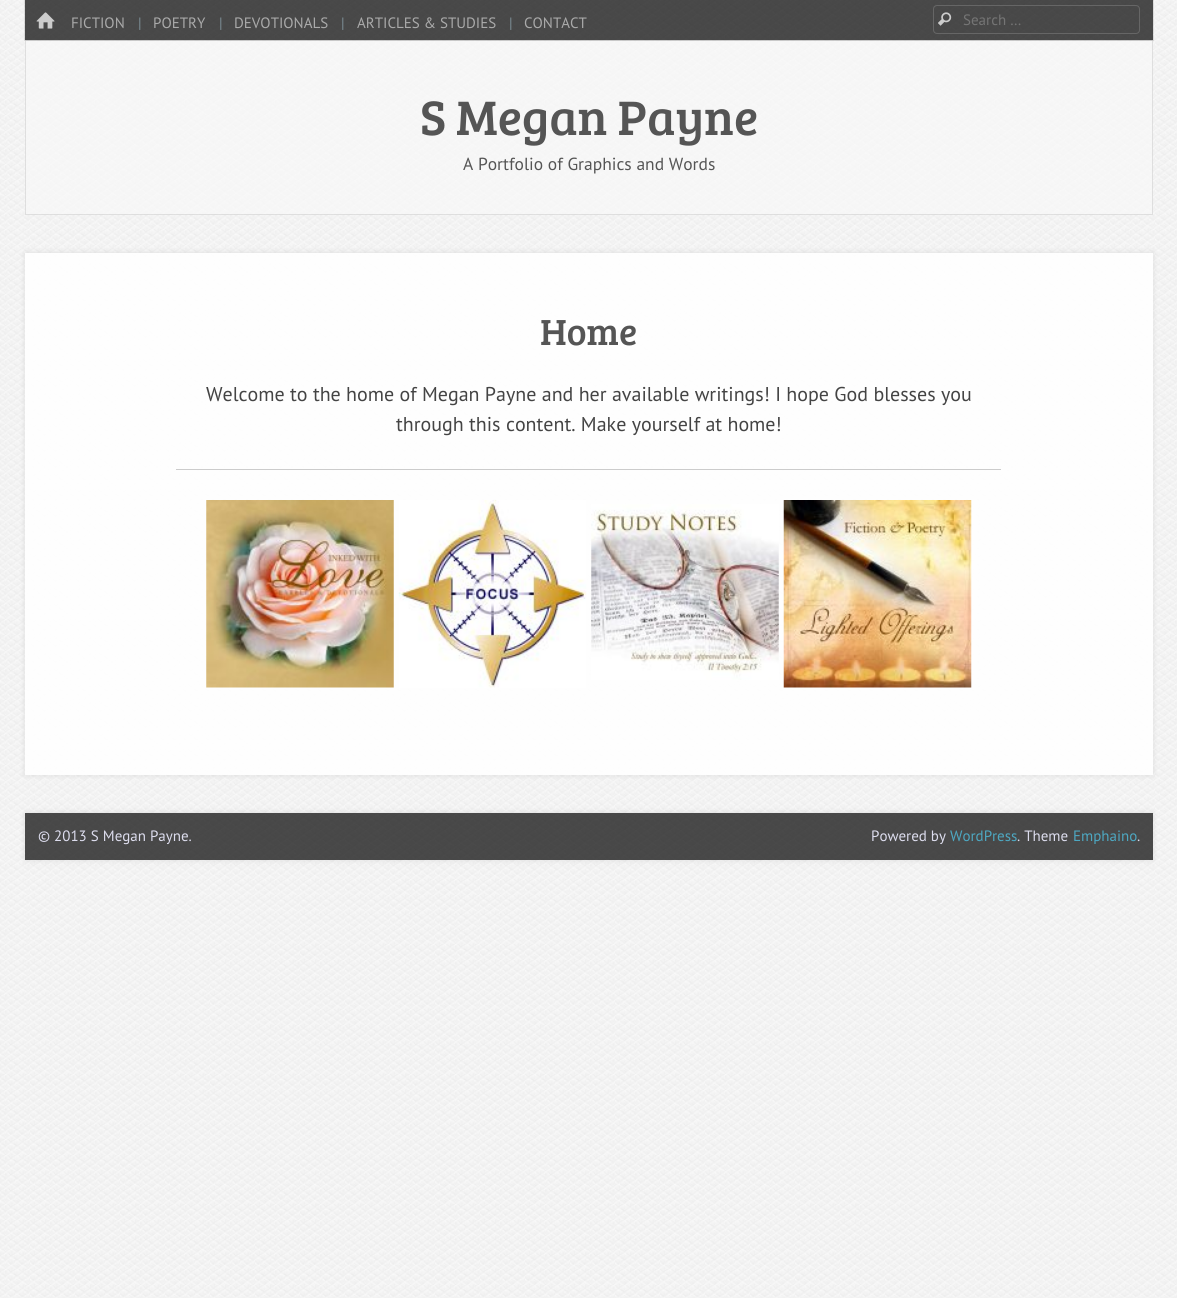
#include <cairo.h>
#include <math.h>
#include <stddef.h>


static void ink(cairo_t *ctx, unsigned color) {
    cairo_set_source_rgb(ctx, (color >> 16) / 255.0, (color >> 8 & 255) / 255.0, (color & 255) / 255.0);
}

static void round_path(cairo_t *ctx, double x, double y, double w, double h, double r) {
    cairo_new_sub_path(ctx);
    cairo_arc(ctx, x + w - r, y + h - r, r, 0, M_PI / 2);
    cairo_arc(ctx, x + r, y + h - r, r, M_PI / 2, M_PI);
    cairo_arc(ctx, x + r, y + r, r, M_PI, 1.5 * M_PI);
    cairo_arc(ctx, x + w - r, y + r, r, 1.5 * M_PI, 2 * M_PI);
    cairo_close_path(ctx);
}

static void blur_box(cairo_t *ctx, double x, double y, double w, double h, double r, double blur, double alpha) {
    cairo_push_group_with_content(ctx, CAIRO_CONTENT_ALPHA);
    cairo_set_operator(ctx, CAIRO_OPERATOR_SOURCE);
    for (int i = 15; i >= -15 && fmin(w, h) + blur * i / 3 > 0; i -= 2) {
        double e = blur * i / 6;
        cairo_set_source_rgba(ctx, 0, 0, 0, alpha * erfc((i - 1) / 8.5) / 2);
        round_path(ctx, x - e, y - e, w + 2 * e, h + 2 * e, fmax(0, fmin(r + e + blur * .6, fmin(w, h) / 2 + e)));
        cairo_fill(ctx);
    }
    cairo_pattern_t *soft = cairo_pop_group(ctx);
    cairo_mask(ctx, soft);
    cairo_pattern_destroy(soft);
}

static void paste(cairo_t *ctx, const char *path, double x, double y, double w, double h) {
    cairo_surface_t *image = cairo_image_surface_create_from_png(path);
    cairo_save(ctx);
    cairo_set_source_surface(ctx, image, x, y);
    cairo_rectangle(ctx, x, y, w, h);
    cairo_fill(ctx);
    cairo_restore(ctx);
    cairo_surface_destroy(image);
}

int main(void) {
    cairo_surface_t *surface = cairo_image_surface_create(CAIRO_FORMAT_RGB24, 1177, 1298);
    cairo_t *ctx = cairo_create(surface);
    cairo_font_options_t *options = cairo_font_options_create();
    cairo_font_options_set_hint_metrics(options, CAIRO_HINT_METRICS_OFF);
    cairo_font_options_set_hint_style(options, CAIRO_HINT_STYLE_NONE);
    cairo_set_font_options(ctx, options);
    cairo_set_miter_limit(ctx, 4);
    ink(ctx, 0xFFFFFF);
    cairo_paint(ctx);
    paste(ctx, "media/1.png", 0, 0, 1177, 1298);
    cairo_set_source_rgba(ctx, 0.973, 0.973, 0.973, 0.7);
    cairo_rectangle(ctx, 25, 40, 1128, 175);
    cairo_fill(ctx);
    cairo_rectangle(ctx, 25.5, 40.5, 1127, 174);
    cairo_set_source_rgba(ctx, 0, 0, 0, 0.1);
    cairo_set_line_width(ctx, 1);
    cairo_stroke(ctx);
    cairo_rectangle(ctx, 24.5, -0.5, 1129, 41);
    cairo_stroke(ctx);
    cairo_set_source_rgba(ctx, 0, 0, 0, 0.7);
    cairo_rectangle(ctx, 25, 0, 1128, 40);
    cairo_fill(ctx);
    paste(ctx, "media/2.png", 36, 12, 19, 17);
    cairo_select_font_face(ctx, "PT Sans", CAIRO_FONT_SLANT_NORMAL, CAIRO_FONT_WEIGHT_NORMAL);
    cairo_set_font_size(ctx, 15);
    ink(ctx, 0xAAAAAA);
    cairo_move_to(ctx, 71, 28);
    cairo_show_text(ctx, "FICTION");
    ink(ctx, 0x7C8D95);
    cairo_move_to(ctx, 138, 28);
    cairo_show_text(ctx, "|");
    ink(ctx, 0xAAAAAA);
    cairo_move_to(ctx, 153, 28);
    cairo_show_text(ctx, "POETRY");
    ink(ctx, 0x7C8D95);
    cairo_move_to(ctx, 219, 28);
    cairo_show_text(ctx, "|");
    ink(ctx, 0xAAAAAA);
    cairo_move_to(ctx, 234, 28);
    cairo_show_text(ctx, "DEVOTIONALS");
    ink(ctx, 0x7C8D95);
    cairo_move_to(ctx, 341, 28);
    cairo_show_text(ctx, "|");
    ink(ctx, 0xAAAAAA);
    cairo_move_to(ctx, 357, 28);
    cairo_show_text(ctx, "ARTICLES & STUDIES");
    ink(ctx, 0x7C8D95);
    cairo_move_to(ctx, 509, 28);
    cairo_show_text(ctx, "|");
    ink(ctx, 0xAAAAAA);
    cairo_move_to(ctx, 524, 28);
    cairo_show_text(ctx, "CONTACT");
    round_path(ctx, 933.5, 5.5, 206, 28, 3.5);
    ink(ctx, 0x666666);
    cairo_stroke(ctx);
    paste(ctx, "media/3.png", 938, 12, 14, 14);
    ink(ctx, 0x757575);
    cairo_move_to(ctx, 963, 25);
    cairo_show_text(ctx, "Search …");
    cairo_select_font_face(ctx, "Bree Serif", CAIRO_FONT_SLANT_NORMAL, CAIRO_FONT_WEIGHT_NORMAL);
    cairo_set_font_size(ctx, 50);
    ink(ctx, 0x555555);
    cairo_move_to(ctx, 420, 135);
    cairo_show_text(ctx, "S Megan Payne");
    cairo_select_font_face(ctx, "PT Sans", CAIRO_FONT_SLANT_NORMAL, CAIRO_FONT_WEIGHT_NORMAL);
    cairo_set_font_size(ctx, 17.5);
    cairo_move_to(ctx, 463, 170);
    cairo_show_text(ctx, "A Portfolio of Graphics and Words");
    cairo_save(ctx);
    cairo_set_fill_rule(ctx, CAIRO_FILL_RULE_EVEN_ODD);
    cairo_new_path(ctx);
    cairo_move_to(ctx, 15, 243);
    cairo_line_to(ctx, 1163, 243);
    cairo_line_to(ctx, 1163, 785);
    cairo_line_to(ctx, 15, 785);
    cairo_close_path(ctx);
    cairo_move_to(ctx, 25, 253);
    cairo_line_to(ctx, 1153, 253);
    cairo_line_to(ctx, 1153, 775);
    cairo_line_to(ctx, 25, 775);
    cairo_close_path(ctx);
    cairo_clip(ctx);
    ink(ctx, 0x000000);
    blur_box(ctx, 25, 253, 1128, 522, 0, 3, 0.1);
    cairo_restore(ctx);
    cairo_set_source_rgba(ctx, 1, 1, 1, 0.9);
    cairo_rectangle(ctx, 25, 253, 1128, 522);
    cairo_fill(ctx);
    cairo_select_font_face(ctx, "Bree Serif", CAIRO_FONT_SLANT_NORMAL, CAIRO_FONT_WEIGHT_NORMAL);
    cairo_set_font_size(ctx, 37.5);
    ink(ctx, 0x555555);
    cairo_move_to(ctx, 540, 345);
    cairo_show_text(ctx, "Home");
    cairo_select_font_face(ctx, "PT Sans", CAIRO_FONT_SLANT_NORMAL, CAIRO_FONT_WEIGHT_NORMAL);
    cairo_set_font_size(ctx, 20);
    ink(ctx, 0x444444);
    cairo_move_to(ctx, 206, 401);
    cairo_show_text(ctx, "Welcome to the home of Megan Payne and her available writings! I hope God blesses you");
    cairo_move_to(ctx, 396, 431);
    cairo_show_text(ctx, "through this content. Make yourself at home!");
    ink(ctx, 0xCCCCCC);
    cairo_rectangle(ctx, 176, 469, 825, 1);
    cairo_fill(ctx);
    paste(ctx, "media/4.png", 206, 500, 188, 188);
    paste(ctx, "media/5.png", 398, 500, 189, 188);
    paste(ctx, "media/6.png", 591, 504, 188, 176);
    paste(ctx, "media/7.png", 783, 500, 189, 188);
    cairo_save(ctx);
    cairo_set_fill_rule(ctx, CAIRO_FILL_RULE_EVEN_ODD);
    cairo_new_path(ctx);
    cairo_move_to(ctx, 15, 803);
    cairo_line_to(ctx, 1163, 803);
    cairo_line_to(ctx, 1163, 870);
    cairo_line_to(ctx, 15, 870);
    cairo_close_path(ctx);
    cairo_move_to(ctx, 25, 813);
    cairo_line_to(ctx, 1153, 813);
    cairo_line_to(ctx, 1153, 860);
    cairo_line_to(ctx, 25, 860);
    cairo_close_path(ctx);
    cairo_clip(ctx);
    ink(ctx, 0x000000);
    blur_box(ctx, 25, 813, 1128, 47, 0, 3, 0.1);
    cairo_restore(ctx);
    cairo_set_source_rgba(ctx, 0, 0, 0, 0.7);
    cairo_rectangle(ctx, 25, 813, 1128, 47);
    cairo_fill(ctx);
    cairo_set_font_size(ctx, 15);
    ink(ctx, 0xDDDDEE);
    cairo_move_to(ctx, 38, 841);
    cairo_show_text(ctx, "© 2013 S Megan Payne.");
    cairo_move_to(ctx, 871, 841);
    cairo_show_text(ctx, "Powered by");
    ink(ctx, 0x4DA8C2);
    cairo_move_to(ctx, 950, 841);
    cairo_show_text(ctx, "WordPress");
    ink(ctx, 0xDDDDEE);
    cairo_move_to(ctx, 1017, 841);
    cairo_show_text(ctx, ". Theme");
    ink(ctx, 0x4DA8C2);
    cairo_move_to(ctx, 1073, 841);
    cairo_show_text(ctx, "Emphaino");
    ink(ctx, 0xDDDDEE);
    cairo_move_to(ctx, 1137, 841);
    cairo_show_text(ctx, ".");
    cairo_surface_write_to_png(surface, "image.png");
    cairo_font_options_destroy(options);
    cairo_destroy(ctx);
    cairo_surface_destroy(surface);
    return 0;
}
